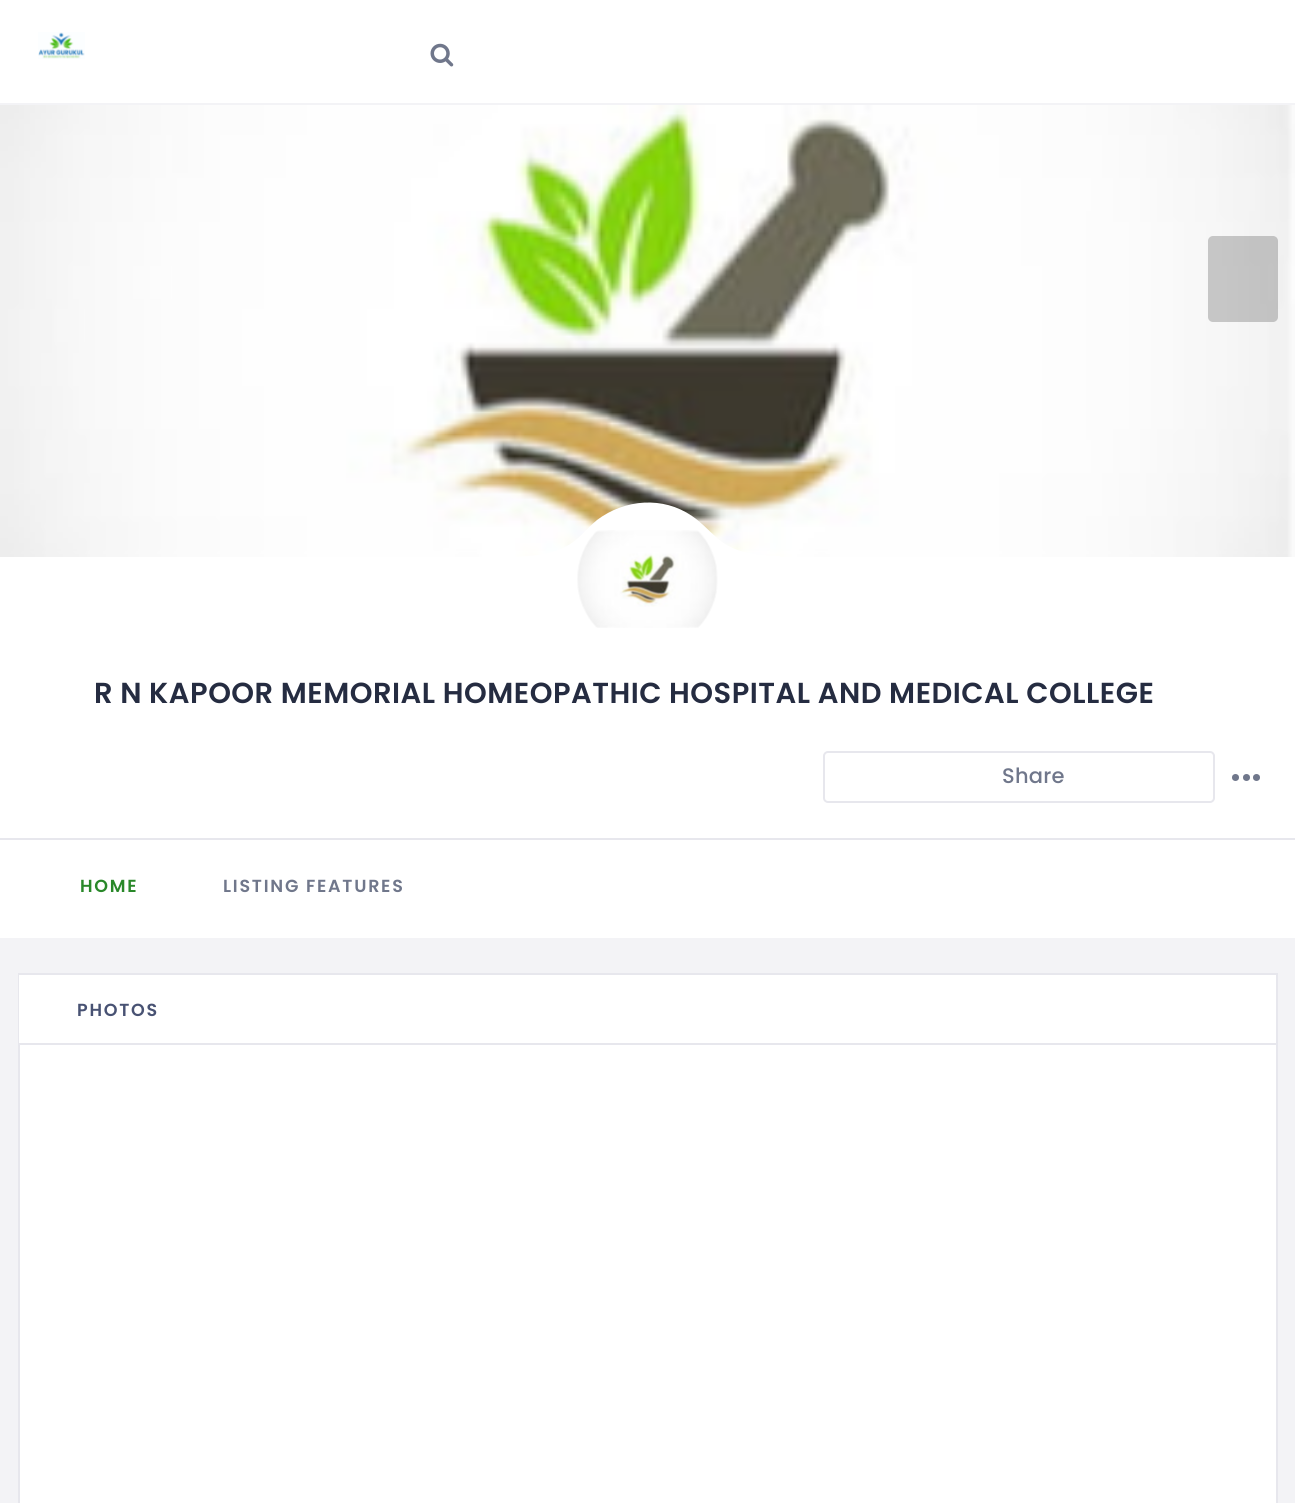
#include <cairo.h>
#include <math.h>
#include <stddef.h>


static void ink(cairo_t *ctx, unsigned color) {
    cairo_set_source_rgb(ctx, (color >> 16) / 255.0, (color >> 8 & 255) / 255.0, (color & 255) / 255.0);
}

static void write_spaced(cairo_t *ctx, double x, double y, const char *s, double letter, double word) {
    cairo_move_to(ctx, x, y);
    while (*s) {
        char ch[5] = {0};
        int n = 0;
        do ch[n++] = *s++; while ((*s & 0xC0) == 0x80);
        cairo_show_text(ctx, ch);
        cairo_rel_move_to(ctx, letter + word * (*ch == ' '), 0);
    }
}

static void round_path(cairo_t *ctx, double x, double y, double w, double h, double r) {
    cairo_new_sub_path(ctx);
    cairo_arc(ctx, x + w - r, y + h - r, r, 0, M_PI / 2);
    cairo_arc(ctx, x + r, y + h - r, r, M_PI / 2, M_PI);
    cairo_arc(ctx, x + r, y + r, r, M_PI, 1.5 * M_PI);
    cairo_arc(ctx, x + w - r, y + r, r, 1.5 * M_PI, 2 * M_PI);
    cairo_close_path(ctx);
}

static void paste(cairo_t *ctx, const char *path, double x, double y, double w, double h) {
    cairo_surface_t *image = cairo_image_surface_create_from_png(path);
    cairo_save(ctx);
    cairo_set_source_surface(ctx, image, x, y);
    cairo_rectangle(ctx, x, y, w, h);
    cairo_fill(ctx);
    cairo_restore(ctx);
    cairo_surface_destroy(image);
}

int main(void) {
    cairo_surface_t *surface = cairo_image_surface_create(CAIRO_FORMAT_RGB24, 1295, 1503);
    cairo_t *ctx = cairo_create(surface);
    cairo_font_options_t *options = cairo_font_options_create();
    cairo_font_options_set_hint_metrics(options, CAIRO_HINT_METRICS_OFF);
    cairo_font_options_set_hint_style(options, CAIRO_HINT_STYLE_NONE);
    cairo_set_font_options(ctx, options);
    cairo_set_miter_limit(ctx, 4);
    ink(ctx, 0xFFFFFF);
    cairo_paint(ctx);
    paste(ctx, "media/1.png", 38, 32, 47, 27);
    paste(ctx, "media/2.png", 430, 43, 24, 24);
    ink(ctx, 0xF3F3F6);
    cairo_rectangle(ctx, 0, 103, 1295, 2);
    cairo_fill(ctx);
    paste(ctx, "media/3.png", 0, 105, 1295, 452);
    cairo_set_source_rgba(ctx, 0, 0, 0, 0.2);
    round_path(ctx, 1208, 236, 70, 86, 5);
    cairo_fill(ctx);
    ink(ctx, 0xE7E7ED);
    cairo_rectangle(ctx, 0, 838, 1295, 2);
    cairo_fill(ctx);
    ink(ctx, 0xFFFFFF);
    cairo_new_path(ctx);
    cairo_move_to(ctx, 716, 537);
    cairo_curve_to(ctx, 708, 530, 701, 522, 692, 516);
    cairo_curve_to(ctx, 663, 496, 625, 499, 597, 520);
    cairo_curve_to(ctx, 586, 529, 579, 540, 565, 547);
    cairo_curve_to(ctx, 549, 555, 532, 556, 515, 557);
    cairo_line_to(ctx, 515, 597);
    cairo_line_to(ctx, 780, 597);
    cairo_line_to(ctx, 780, 556);
    cairo_curve_to(ctx, 757, 556, 733, 553, 716, 537);
    cairo_close_path(ctx);
    cairo_fill(ctx);
    paste(ctx, "media/4.png", 577, 530, 141, 98);
    cairo_select_font_face(ctx, "Poppins SemiBold", CAIRO_FONT_SLANT_NORMAL, CAIRO_FONT_WEIGHT_NORMAL);
    cairo_set_font_size(ctx, 28.95);
    ink(ctx, 0x252C41);
    write_spaced(ctx, 94, 703, "R N KAPOOR MEMORIAL HOMEOPATHIC HOSPITAL AND MEDICAL COLLEGE", 0.5, -0.25);
    round_path(ctx, 824, 752, 390, 50, 4);
    ink(ctx, 0xE7E7ED);
    cairo_stroke(ctx);
    cairo_select_font_face(ctx, "Poppins Medium", CAIRO_FONT_SLANT_NORMAL, CAIRO_FONT_WEIGHT_NORMAL);
    cairo_set_font_size(ctx, 21);
    ink(ctx, 0x70778B);
    write_spaced(ctx, 1002, 783, "Share", 0.25, 0);
    cairo_new_path(ctx);
    cairo_arc(ctx, 1235.5, 777.5, 3.5, 0, 2 * M_PI);
    cairo_fill(ctx);
    cairo_arc(ctx, 1246.5, 777.5, 3.5, 0, 2 * M_PI);
    cairo_fill(ctx);
    cairo_arc(ctx, 1256.5, 777.5, 3.5, 0, 2 * M_PI);
    cairo_fill(ctx);
    cairo_select_font_face(ctx, "Poppins SemiBold", CAIRO_FONT_SLANT_NORMAL, CAIRO_FONT_WEIGHT_NORMAL);
    cairo_set_font_size(ctx, 17.5);
    ink(ctx, 0x298829);
    write_spaced(ctx, 80, 892, "HOME", 1.75, 0);
    ink(ctx, 0x70778B);
    write_spaced(ctx, 223, 892, "LISTING FEATURES", 1.75, 0);
    ink(ctx, 0xF3F3F6);
    cairo_rectangle(ctx, 0, 938, 1295, 565);
    cairo_fill(ctx);
    ink(ctx, 0xFFFFFF);
    cairo_rectangle(ctx, 20, 1045, 1256, 458);
    cairo_fill(ctx);
    cairo_rectangle(ctx, 19, 974, 1258, 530);
    ink(ctx, 0xE7E7ED);
    cairo_stroke(ctx);
    ink(ctx, 0xFFFFFF);
    cairo_rectangle(ctx, 19, 975, 1257, 68);
    cairo_fill(ctx);
    ink(ctx, 0xE7E7ED);
    cairo_rectangle(ctx, 19, 1043, 1257, 2);
    cairo_fill(ctx);
    ink(ctx, 0x485273);
    write_spaced(ctx, 77, 1016, "PHOTOS", 1.75, 0);
    cairo_surface_write_to_png(surface, "image.png");
    cairo_font_options_destroy(options);
    cairo_destroy(ctx);
    cairo_surface_destroy(surface);
    return 0;
}
